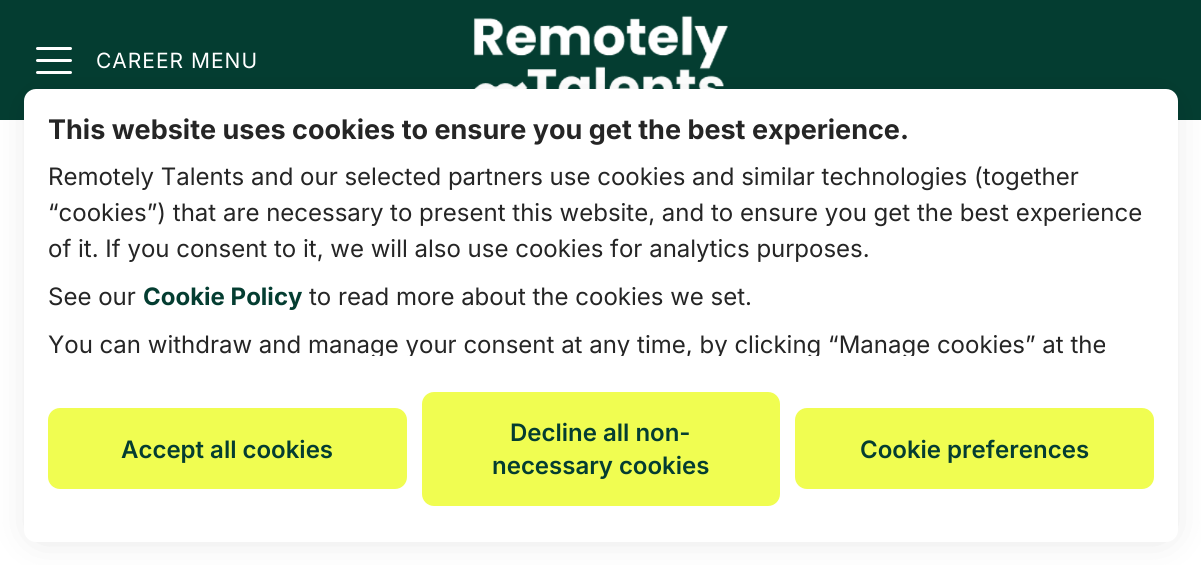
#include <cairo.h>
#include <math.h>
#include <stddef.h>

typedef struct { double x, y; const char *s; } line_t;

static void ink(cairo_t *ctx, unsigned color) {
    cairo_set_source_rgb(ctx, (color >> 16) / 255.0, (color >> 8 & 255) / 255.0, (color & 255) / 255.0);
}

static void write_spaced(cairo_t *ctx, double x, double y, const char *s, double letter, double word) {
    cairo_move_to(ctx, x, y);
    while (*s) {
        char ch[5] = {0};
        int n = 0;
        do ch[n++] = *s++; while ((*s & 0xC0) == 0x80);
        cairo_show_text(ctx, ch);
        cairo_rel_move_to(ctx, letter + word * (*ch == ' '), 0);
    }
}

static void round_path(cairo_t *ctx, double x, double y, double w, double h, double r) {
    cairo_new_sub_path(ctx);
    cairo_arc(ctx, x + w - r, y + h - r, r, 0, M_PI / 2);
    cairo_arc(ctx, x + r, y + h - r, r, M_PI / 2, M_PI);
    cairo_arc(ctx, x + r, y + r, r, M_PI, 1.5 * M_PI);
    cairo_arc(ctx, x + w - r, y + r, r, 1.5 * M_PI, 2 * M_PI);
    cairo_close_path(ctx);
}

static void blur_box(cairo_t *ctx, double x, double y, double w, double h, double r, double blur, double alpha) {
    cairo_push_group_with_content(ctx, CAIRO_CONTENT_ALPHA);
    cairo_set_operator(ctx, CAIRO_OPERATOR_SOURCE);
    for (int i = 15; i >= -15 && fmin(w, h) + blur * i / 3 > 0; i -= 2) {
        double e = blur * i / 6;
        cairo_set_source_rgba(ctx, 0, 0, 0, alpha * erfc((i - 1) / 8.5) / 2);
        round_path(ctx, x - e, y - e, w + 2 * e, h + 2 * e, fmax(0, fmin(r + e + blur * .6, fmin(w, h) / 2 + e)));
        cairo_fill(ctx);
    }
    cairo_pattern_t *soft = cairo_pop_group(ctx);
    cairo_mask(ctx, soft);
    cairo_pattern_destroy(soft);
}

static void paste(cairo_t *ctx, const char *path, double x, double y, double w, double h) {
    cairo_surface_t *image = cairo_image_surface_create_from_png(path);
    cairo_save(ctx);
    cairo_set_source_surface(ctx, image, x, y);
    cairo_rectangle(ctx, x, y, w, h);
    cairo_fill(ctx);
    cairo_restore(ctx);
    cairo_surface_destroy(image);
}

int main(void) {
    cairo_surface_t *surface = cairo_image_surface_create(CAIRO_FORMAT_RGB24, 1201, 565);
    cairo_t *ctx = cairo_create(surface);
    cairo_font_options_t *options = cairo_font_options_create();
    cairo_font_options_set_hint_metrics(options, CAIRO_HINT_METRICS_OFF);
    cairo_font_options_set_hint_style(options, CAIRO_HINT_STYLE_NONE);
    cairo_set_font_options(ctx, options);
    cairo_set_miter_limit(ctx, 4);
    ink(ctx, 0xFFFFFF);
    cairo_paint(ctx);
    ink(ctx, 0x043D31);
    cairo_rectangle(ctx, 0, 0, 1201, 120);
    cairo_fill(ctx);
    ink(ctx, 0xFFFFFF);
    round_path(ctx, 36, 47, 36, 3, 1.5);
    cairo_fill(ctx);
    round_path(ctx, 36, 59, 36, 3, 1.5);
    cairo_fill(ctx);
    round_path(ctx, 36, 71, 36, 3, 1.5);
    cairo_fill(ctx);
    cairo_select_font_face(ctx, "Inter", CAIRO_FONT_SLANT_NORMAL, CAIRO_FONT_WEIGHT_NORMAL);
    cairo_set_font_size(ctx, 21);
    write_spaced(ctx, 96, 68, "CAREER MENU", 1, 0);
    paste(ctx, "media/1.png", 473, 15, 255, 74);
    ink(ctx, 0x000000);
    blur_box(ctx, 39, 107, 1124, 423, 0, 20, 0.18);
    ink(ctx, 0xFFFFFF);
    round_path(ctx, 24, 89, 1154, 453, 12);
    cairo_fill(ctx);
    cairo_select_font_face(ctx, "Inter", CAIRO_FONT_SLANT_NORMAL, CAIRO_FONT_WEIGHT_BOLD);
    cairo_set_font_size(ctx, 27);
    ink(ctx, 0x252525);
    cairo_move_to(ctx, 48, 139);
    cairo_show_text(ctx, "This website uses cookies to ensure you get the best experience.");
    cairo_select_font_face(ctx, "Inter", CAIRO_FONT_SLANT_NORMAL, CAIRO_FONT_WEIGHT_NORMAL);
    cairo_set_font_size(ctx, 24);
    {
        static const line_t items[] = {
            {48, 185, "Remotely Talents and our selected partners use cookies and similar technologies (together"},
            {48, 221, "“cookies”) that are necessary to present this website, and to ensure you get the best experience"},
            {48, 257, "of it. If you consent to it, we will also use cookies for analytics purposes."},
            {48, 305, "See our"},
        };
        for (size_t i = 0; i < sizeof items / sizeof *items; i++) {
            cairo_move_to(ctx, items[i].x, items[i].y);
            cairo_show_text(ctx, items[i].s);
        }
    }
    cairo_select_font_face(ctx, "Inter", CAIRO_FONT_SLANT_NORMAL, CAIRO_FONT_WEIGHT_BOLD);
    ink(ctx, 0x043D31);
    cairo_move_to(ctx, 143, 305);
    cairo_show_text(ctx, "Cookie Policy");
    cairo_select_font_face(ctx, "Inter", CAIRO_FONT_SLANT_NORMAL, CAIRO_FONT_WEIGHT_NORMAL);
    ink(ctx, 0x252525);
    cairo_move_to(ctx, 309, 305);
    cairo_show_text(ctx, "to read more about the cookies we set.");
    cairo_save(ctx);
    cairo_rectangle(ctx, 48, 113, 1106, 243);
    cairo_clip(ctx);
    cairo_move_to(ctx, 48, 353);
    cairo_show_text(ctx, "You can withdraw and manage your consent at any time, by clicking “Manage cookies” at the");
    cairo_restore(ctx);
    ink(ctx, 0xF0FD51);
    round_path(ctx, 48, 408, 359, 81, 12);
    cairo_fill(ctx);
    cairo_select_font_face(ctx, "Inter SemiBold", CAIRO_FONT_SLANT_NORMAL, CAIRO_FONT_WEIGHT_NORMAL);
    ink(ctx, 0x043D31);
    cairo_move_to(ctx, 121, 458);
    cairo_show_text(ctx, "Accept all cookies");
    ink(ctx, 0xF0FD51);
    round_path(ctx, 422, 392, 358, 114, 12);
    cairo_fill(ctx);
    ink(ctx, 0x043D31);
    cairo_move_to(ctx, 510, 441);
    cairo_show_text(ctx, "Decline all non-");
    cairo_move_to(ctx, 492, 474);
    cairo_show_text(ctx, "necessary cookies");
    ink(ctx, 0xF0FD51);
    round_path(ctx, 795, 408, 359, 81, 12);
    cairo_fill(ctx);
    ink(ctx, 0x043D31);
    cairo_move_to(ctx, 860, 458);
    cairo_show_text(ctx, "Cookie preferences");
    cairo_surface_write_to_png(surface, "image.png");
    cairo_font_options_destroy(options);
    cairo_destroy(ctx);
    cairo_surface_destroy(surface);
    return 0;
}
